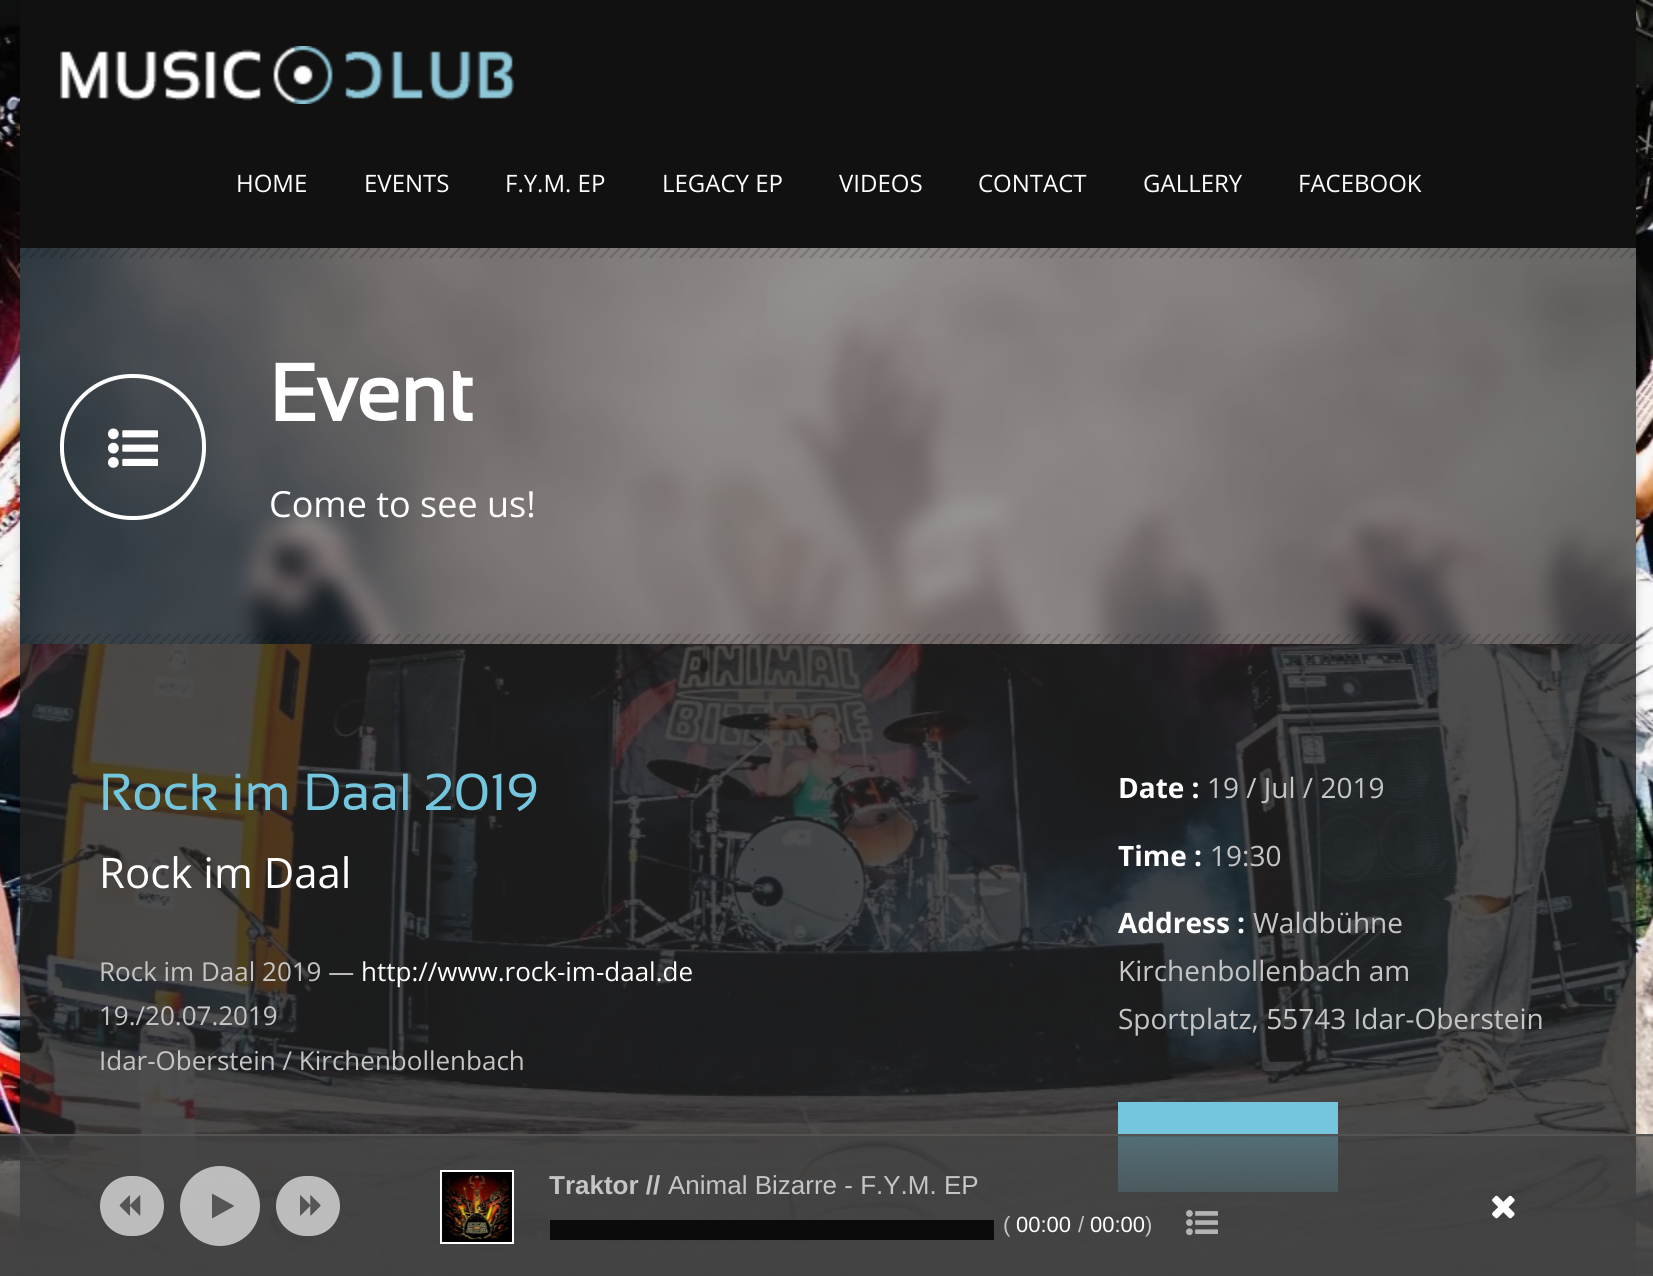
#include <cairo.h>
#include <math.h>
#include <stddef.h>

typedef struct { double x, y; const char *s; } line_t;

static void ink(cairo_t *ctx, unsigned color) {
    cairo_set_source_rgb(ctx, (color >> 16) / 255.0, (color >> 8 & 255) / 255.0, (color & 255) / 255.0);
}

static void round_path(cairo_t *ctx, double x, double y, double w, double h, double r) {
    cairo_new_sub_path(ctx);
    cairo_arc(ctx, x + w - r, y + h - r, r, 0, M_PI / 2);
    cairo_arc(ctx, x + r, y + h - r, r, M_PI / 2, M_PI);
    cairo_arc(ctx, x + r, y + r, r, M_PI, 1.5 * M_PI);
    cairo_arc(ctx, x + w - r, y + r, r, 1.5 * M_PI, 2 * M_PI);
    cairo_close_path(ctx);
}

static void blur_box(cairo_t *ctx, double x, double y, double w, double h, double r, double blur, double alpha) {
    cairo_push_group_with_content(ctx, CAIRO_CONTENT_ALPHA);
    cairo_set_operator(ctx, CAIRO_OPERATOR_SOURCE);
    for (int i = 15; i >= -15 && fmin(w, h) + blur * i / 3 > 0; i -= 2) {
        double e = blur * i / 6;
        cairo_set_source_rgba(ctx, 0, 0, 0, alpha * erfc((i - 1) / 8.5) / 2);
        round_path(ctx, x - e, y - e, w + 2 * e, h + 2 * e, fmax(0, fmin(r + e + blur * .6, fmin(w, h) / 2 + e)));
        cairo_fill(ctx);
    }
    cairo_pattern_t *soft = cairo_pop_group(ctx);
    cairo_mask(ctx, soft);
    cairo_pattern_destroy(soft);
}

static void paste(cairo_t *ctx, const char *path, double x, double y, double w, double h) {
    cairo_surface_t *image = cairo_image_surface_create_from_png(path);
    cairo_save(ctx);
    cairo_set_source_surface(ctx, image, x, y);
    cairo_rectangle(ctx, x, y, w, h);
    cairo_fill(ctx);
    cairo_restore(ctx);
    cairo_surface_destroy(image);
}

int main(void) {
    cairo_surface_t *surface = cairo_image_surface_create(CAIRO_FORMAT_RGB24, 1653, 1276);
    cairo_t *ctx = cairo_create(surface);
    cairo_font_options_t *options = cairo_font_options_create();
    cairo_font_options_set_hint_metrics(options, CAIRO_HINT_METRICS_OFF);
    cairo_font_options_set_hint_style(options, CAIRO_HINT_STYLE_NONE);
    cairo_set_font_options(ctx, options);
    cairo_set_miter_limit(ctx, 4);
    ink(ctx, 0xFFFFFF);
    cairo_paint(ctx);
    paste(ctx, "media/1.png", 0, 0, 1653, 1276);
    cairo_save(ctx);
    cairo_set_fill_rule(ctx, CAIRO_FILL_RULE_EVEN_ODD);
    cairo_new_path(ctx);
    cairo_move_to(ctx, 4, 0);
    cairo_line_to(ctx, 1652, 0);
    cairo_line_to(ctx, 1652, 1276);
    cairo_line_to(ctx, 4, 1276);
    cairo_close_path(ctx);
    cairo_move_to(ctx, 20, 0);
    cairo_line_to(ctx, 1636, 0);
    cairo_line_to(ctx, 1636, 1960);
    cairo_line_to(ctx, 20, 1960);
    cairo_close_path(ctx);
    cairo_clip(ctx);
    ink(ctx, 0x000000);
    blur_box(ctx, 20, 2, 1616, 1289, 0, 5, 0.15);
    cairo_restore(ctx);
    ink(ctx, 0x111111);
    cairo_rectangle(ctx, 20, 0, 1616, 248);
    cairo_fill(ctx);
    paste(ctx, "media/2.png", 60, 46, 454, 58);
    cairo_select_font_face(ctx, "Open Sans", CAIRO_FONT_SLANT_NORMAL, CAIRO_FONT_WEIGHT_NORMAL);
    cairo_set_font_size(ctx, 24);
    ink(ctx, 0xFFFFFF);
    {
        static const line_t items[] = {
            {236, 192, "HOME"},
            {364, 192, "EVENTS"},
            {505, 192, "F.Y.M. EP"},
            {662, 192, "LEGACY EP"},
            {839, 192, "VIDEOS"},
            {978, 192, "CONTACT"},
            {1143, 192, "GALLERY"},
            {1298, 192, "FACEBOOK"},
        };
        for (size_t i = 0; i < sizeof items / sizeof *items; i++) {
            cairo_move_to(ctx, items[i].x, items[i].y);
            cairo_show_text(ctx, items[i].s);
        }
    }
    paste(ctx, "media/4.png", 20, 248, 1616, 396);
    paste(ctx, "media/3.png", 20, 248, 1616, 10);
    round_path(ctx, 62, 376, 142, 142, 70);
    cairo_set_line_width(ctx, 4);
    cairo_stroke(ctx);
    paste(ctx, "media/5.png", 108, 428, 50, 40);
    cairo_select_font_face(ctx, "Sansation", CAIRO_FONT_SLANT_NORMAL, CAIRO_FONT_WEIGHT_BOLD);
    cairo_set_font_size(ctx, 80);
    cairo_move_to(ctx, 269, 421);
    cairo_show_text(ctx, "Event");
    cairo_select_font_face(ctx, "Open Sans", CAIRO_FONT_SLANT_NORMAL, CAIRO_FONT_WEIGHT_NORMAL);
    cairo_set_font_size(ctx, 36);
    cairo_move_to(ctx, 269, 517);
    cairo_show_text(ctx, "Come to see us!");
    paste(ctx, "media/6.png", 20, 634, 1616, 10);
    cairo_select_font_face(ctx, "Sansation", CAIRO_FONT_SLANT_NORMAL, CAIRO_FONT_WEIGHT_NORMAL);
    cairo_set_font_size(ctx, 52);
    ink(ctx, 0x74C6DE);
    cairo_move_to(ctx, 99, 810);
    cairo_show_text(ctx, "Rock im Daal 2019");
    cairo_select_font_face(ctx, "Open Sans", CAIRO_FONT_SLANT_NORMAL, CAIRO_FONT_WEIGHT_NORMAL);
    cairo_set_font_size(ctx, 42);
    ink(ctx, 0xFFFFFF);
    cairo_move_to(ctx, 99, 888);
    cairo_show_text(ctx, "Rock im Daal");
    cairo_set_font_size(ctx, 26);
    ink(ctx, 0xC5C5C5);
    cairo_move_to(ctx, 99, 981);
    cairo_show_text(ctx, "Rock im Daal 2019 —");
    ink(ctx, 0xFFFFFF);
    cairo_move_to(ctx, 361, 981);
    cairo_show_text(ctx, "http://www.rock-im-daal.de");
    ink(ctx, 0xC5C5C5);
    cairo_move_to(ctx, 99, 1025);
    cairo_show_text(ctx, "19./20.07.2019");
    cairo_move_to(ctx, 99, 1070);
    cairo_show_text(ctx, "Idar-Oberstein / Kirchenbollenbach");
    cairo_select_font_face(ctx, "Open Sans", CAIRO_FONT_SLANT_NORMAL, CAIRO_FONT_WEIGHT_BOLD);
    cairo_set_font_size(ctx, 28);
    ink(ctx, 0xFFFFFF);
    cairo_move_to(ctx, 1118, 798);
    cairo_show_text(ctx, "Date :");
    cairo_select_font_face(ctx, "Open Sans", CAIRO_FONT_SLANT_NORMAL, CAIRO_FONT_WEIGHT_NORMAL);
    ink(ctx, 0xC5C5C5);
    cairo_move_to(ctx, 1207, 798);
    cairo_show_text(ctx, "19 / Jul / 2019");
    cairo_select_font_face(ctx, "Open Sans", CAIRO_FONT_SLANT_NORMAL, CAIRO_FONT_WEIGHT_BOLD);
    ink(ctx, 0xFFFFFF);
    cairo_move_to(ctx, 1118, 866);
    cairo_show_text(ctx, "Time :");
    cairo_select_font_face(ctx, "Open Sans", CAIRO_FONT_SLANT_NORMAL, CAIRO_FONT_WEIGHT_NORMAL);
    ink(ctx, 0xC5C5C5);
    cairo_move_to(ctx, 1210, 866);
    cairo_show_text(ctx, "19:30");
    cairo_select_font_face(ctx, "Open Sans", CAIRO_FONT_SLANT_NORMAL, CAIRO_FONT_WEIGHT_BOLD);
    ink(ctx, 0xFFFFFF);
    cairo_move_to(ctx, 1118, 933);
    cairo_show_text(ctx, "Address :");
    cairo_select_font_face(ctx, "Open Sans", CAIRO_FONT_SLANT_NORMAL, CAIRO_FONT_WEIGHT_NORMAL);
    ink(ctx, 0xC5C5C5);
    {
        static const line_t items[] = {
            {1253, 933, "Waldbühne"},
            {1118, 981, "Kirchenbollenbach am"},
            {1118, 1029, "Sportplatz, 55743 Idar-Oberstein"},
        };
        for (size_t i = 0; i < sizeof items / sizeof *items; i++) {
            cairo_move_to(ctx, items[i].x, items[i].y);
            cairo_show_text(ctx, items[i].s);
        }
    }
    ink(ctx, 0x74C6DE);
    cairo_rectangle(ctx, 1118, 1102, 220, 90);
    cairo_fill(ctx);
    paste(ctx, "media/7.png", 0, 1136, 1653, 140);
    ink(ctx, 0x535353);
    cairo_rectangle(ctx, 0, 1134, 1653, 2);
    cairo_fill(ctx);
    cairo_set_source_rgba(ctx, 0.855, 0.855, 0.855, 0.8);
    round_path(ctx, 100, 1176, 64, 60, 30);
    cairo_fill(ctx);
    paste(ctx, "media/8.png", 119, 1195, 22, 21);
    cairo_arc(ctx, 220, 1206, 40, 0, 2 * M_PI);
    cairo_fill(ctx);
    paste(ctx, "media/9.png", 212, 1193, 22, 26);
    round_path(ctx, 276, 1176, 64, 60, 30);
    cairo_fill(ctx);
    paste(ctx, "media/10.png", 300, 1195, 21, 21);
    cairo_rectangle(ctx, 441, 1171, 72, 72);
    ink(ctx, 0xFFFFFF);
    cairo_set_line_width(ctx, 2);
    cairo_stroke(ctx);
    paste(ctx, "media/11.png", 441, 1172, 71, 70);
    cairo_select_font_face(ctx, "Liberation Sans", CAIRO_FONT_SLANT_NORMAL, CAIRO_FONT_WEIGHT_BOLD);
    cairo_set_font_size(ctx, 26);
    ink(ctx, 0xC5C5C5);
    cairo_move_to(ctx, 549, 1194);
    cairo_show_text(ctx, "Traktor //");
    cairo_select_font_face(ctx, "Liberation Sans", CAIRO_FONT_SLANT_NORMAL, CAIRO_FONT_WEIGHT_NORMAL);
    cairo_move_to(ctx, 668, 1194);
    cairo_show_text(ctx, "Animal Bizarre - F.Y.M. EP");
    ink(ctx, 0x0B0B0B);
    cairo_rectangle(ctx, 550, 1220, 444, 20);
    cairo_fill(ctx);
    cairo_set_font_size(ctx, 22);
    ink(ctx, 0xC5C5C5);
    cairo_move_to(ctx, 1003, 1232);
    cairo_show_text(ctx, "(");
    ink(ctx, 0xFFFFFF);
    cairo_move_to(ctx, 1016, 1232);
    cairo_show_text(ctx, "00:00");
    ink(ctx, 0xC5C5C5);
    cairo_move_to(ctx, 1078, 1232);
    cairo_show_text(ctx, "/");
    ink(ctx, 0xFFFFFF);
    cairo_move_to(ctx, 1090, 1232);
    cairo_show_text(ctx, "00:00");
    ink(ctx, 0xC5C5C5);
    cairo_move_to(ctx, 1145, 1232);
    cairo_show_text(ctx, ")");
    paste(ctx, "media/12.png", 1492, 1195, 23, 24);
    paste(ctx, "media/13.png", 1186, 1210, 32, 26);
    cairo_surface_write_to_png(surface, "image.png");
    cairo_font_options_destroy(options);
    cairo_destroy(ctx);
    cairo_surface_destroy(surface);
    return 0;
}
